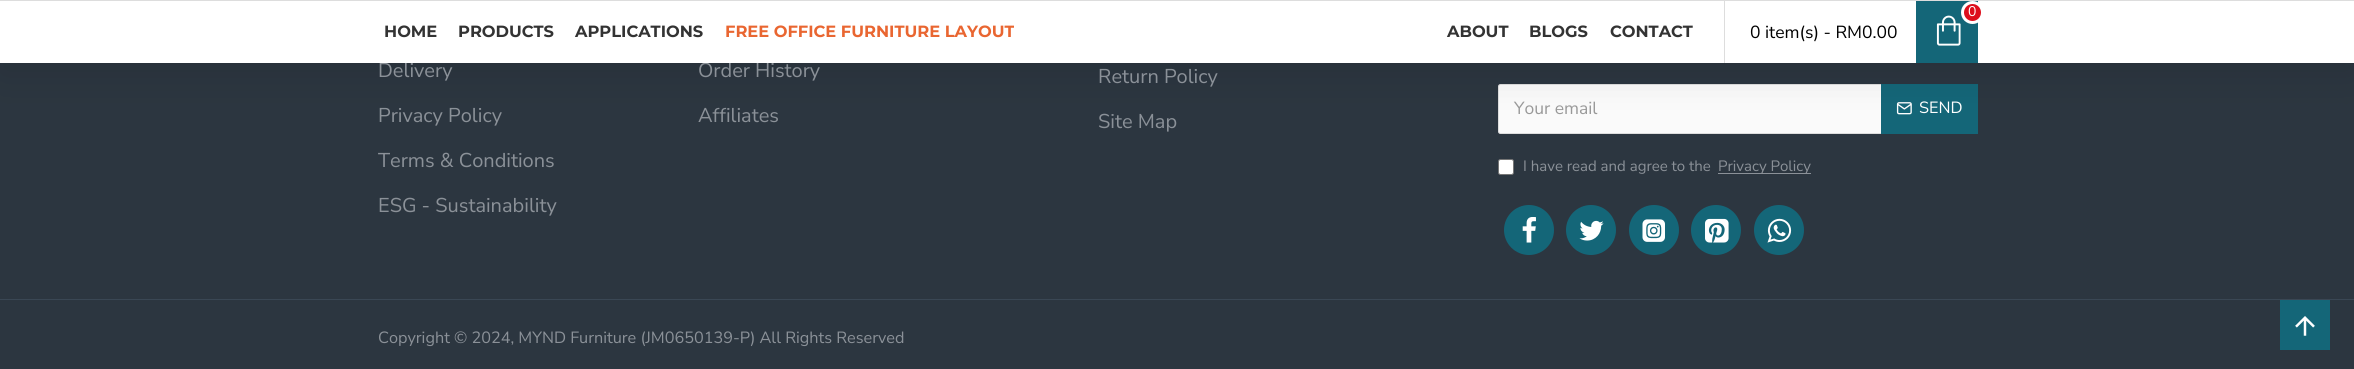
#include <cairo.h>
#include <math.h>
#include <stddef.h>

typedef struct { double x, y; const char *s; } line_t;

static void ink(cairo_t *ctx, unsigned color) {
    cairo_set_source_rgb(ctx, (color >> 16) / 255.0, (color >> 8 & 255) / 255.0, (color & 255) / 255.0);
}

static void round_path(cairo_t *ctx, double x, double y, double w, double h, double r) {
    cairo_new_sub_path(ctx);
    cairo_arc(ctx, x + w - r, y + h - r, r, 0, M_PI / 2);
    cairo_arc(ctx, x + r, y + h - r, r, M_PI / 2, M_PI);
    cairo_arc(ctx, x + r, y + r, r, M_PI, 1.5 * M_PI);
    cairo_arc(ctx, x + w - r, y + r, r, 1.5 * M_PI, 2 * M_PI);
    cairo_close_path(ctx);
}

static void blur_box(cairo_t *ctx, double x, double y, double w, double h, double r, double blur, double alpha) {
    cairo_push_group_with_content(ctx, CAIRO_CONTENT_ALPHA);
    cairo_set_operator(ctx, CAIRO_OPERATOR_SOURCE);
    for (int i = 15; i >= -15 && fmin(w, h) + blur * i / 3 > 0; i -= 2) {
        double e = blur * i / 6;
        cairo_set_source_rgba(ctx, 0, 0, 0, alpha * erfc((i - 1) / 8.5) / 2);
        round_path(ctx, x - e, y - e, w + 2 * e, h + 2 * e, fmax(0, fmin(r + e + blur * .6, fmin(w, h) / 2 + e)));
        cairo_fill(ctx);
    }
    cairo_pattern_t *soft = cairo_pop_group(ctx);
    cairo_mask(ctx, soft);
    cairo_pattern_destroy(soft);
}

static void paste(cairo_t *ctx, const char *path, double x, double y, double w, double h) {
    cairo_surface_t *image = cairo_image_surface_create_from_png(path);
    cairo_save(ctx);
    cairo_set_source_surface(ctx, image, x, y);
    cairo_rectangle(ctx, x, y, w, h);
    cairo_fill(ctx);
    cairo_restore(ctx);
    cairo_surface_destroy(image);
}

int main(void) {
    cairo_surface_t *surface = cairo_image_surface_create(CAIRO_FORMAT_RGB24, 2354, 369);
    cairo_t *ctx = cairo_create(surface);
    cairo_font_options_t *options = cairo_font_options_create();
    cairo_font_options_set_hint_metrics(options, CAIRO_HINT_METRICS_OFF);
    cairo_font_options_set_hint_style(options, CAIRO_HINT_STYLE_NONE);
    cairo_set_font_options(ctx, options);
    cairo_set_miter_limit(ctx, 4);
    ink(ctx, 0x2C3640);
    cairo_paint(ctx);
    ink(ctx, 0xFAFAFA);
    round_path(ctx, 1498.5, 84.5, 479, 49, 2);
    cairo_fill_preserve(ctx);
    ink(ctx, 0xDDDDDD);
    cairo_set_line_width(ctx, 1);
    cairo_stroke(ctx);
    ink(ctx, 0x146678);
    cairo_rectangle(ctx, 1881, 84, 97, 50);
    cairo_fill(ctx);
    paste(ctx, "media/2.png", 1896, 102, 16, 13);
    ink(ctx, 0x000000);
    blur_box(ctx, 0, 13, 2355, 62, 0, 19, 0.1);
    cairo_select_font_face(ctx, "Nunito Sans", CAIRO_FONT_SLANT_NORMAL, CAIRO_FONT_WEIGHT_NORMAL);
    cairo_set_font_size(ctx, 20);
    ink(ctx, 0x8B9198);
    cairo_move_to(ctx, 378, 77);
    cairo_show_text(ctx, "Delivery");
    cairo_move_to(ctx, 698, 77);
    cairo_show_text(ctx, "Order History");
    ink(ctx, 0xFFFFFF);
    cairo_rectangle(ctx, 0, 1, 2354, 62);
    cairo_fill(ctx);
    ink(ctx, 0xDDDDDD);
    cairo_rectangle(ctx, 0, 0, 2354, 1);
    cairo_fill(ctx);
    cairo_select_font_face(ctx, "Montserrat", CAIRO_FONT_SLANT_NORMAL, CAIRO_FONT_WEIGHT_BOLD);
    cairo_set_font_size(ctx, 16.25);
    ink(ctx, 0x333333);
    {
        static const line_t items[] = {
            {384, 37, "HOME"},
            {458, 37, "PRODUCTS"},
            {575, 37, "APPLICATIONS"},
        };
        for (size_t i = 0; i < sizeof items / sizeof *items; i++) {
            cairo_move_to(ctx, items[i].x, items[i].y);
            cairo_show_text(ctx, items[i].s);
        }
    }
    ink(ctx, 0xE96631);
    cairo_move_to(ctx, 725, 37);
    cairo_show_text(ctx, "FREE OFFICE FURNITURE LAYOUT");
    ink(ctx, 0x333333);
    {
        static const line_t items[] = {
            {1447, 37, "ABOUT"},
            {1529, 37, "BLOGS"},
            {1610, 37, "CONTACT"},
        };
        for (size_t i = 0; i < sizeof items / sizeof *items; i++) {
            cairo_move_to(ctx, items[i].x, items[i].y);
            cairo_show_text(ctx, items[i].s);
        }
    }
    ink(ctx, 0xDDDDDD);
    cairo_rectangle(ctx, 1724, 0, 1, 63);
    cairo_fill(ctx);
    ink(ctx, 0x146678);
    cairo_rectangle(ctx, 1916, 1, 62, 62);
    cairo_fill(ctx);
    paste(ctx, "media/1.png", 1936, 15, 25, 31);
    ink(ctx, 0xDD0E1C);
    cairo_arc(ctx, 1972.5, 12.5, 10, 0, 2 * M_PI);
    cairo_fill_preserve(ctx);
    ink(ctx, 0xFFFFFF);
    cairo_set_line_width(ctx, 3);
    cairo_stroke(ctx);
    cairo_select_font_face(ctx, "Nunito Sans", CAIRO_FONT_SLANT_NORMAL, CAIRO_FONT_WEIGHT_NORMAL);
    cairo_set_font_size(ctx, 14);
    cairo_move_to(ctx, 1968, 16);
    cairo_show_text(ctx, "0");
    cairo_set_font_size(ctx, 17.5);
    ink(ctx, 0x000000);
    cairo_move_to(ctx, 1750, 38);
    cairo_show_text(ctx, "0 item(s) - RM0.00");
    cairo_set_font_size(ctx, 20);
    ink(ctx, 0x8B9198);
    {
        static const line_t items[] = {
            {378, 122, "Privacy Policy"},
            {378, 167, "Terms & Conditions"},
            {378, 212, "ESG - Sustainability"},
            {698, 122, "Affiliates"},
            {1098, 83, "Return Policy"},
            {1098, 128, "Site Map"},
        };
        for (size_t i = 0; i < sizeof items / sizeof *items; i++) {
            cairo_move_to(ctx, items[i].x, items[i].y);
            cairo_show_text(ctx, items[i].s);
        }
    }
    cairo_set_font_size(ctx, 17.5);
    ink(ctx, 0x999999);
    cairo_move_to(ctx, 1514, 114);
    cairo_show_text(ctx, "Your email");
    cairo_set_font_size(ctx, 16.25);
    ink(ctx, 0xFFFFFF);
    cairo_move_to(ctx, 1919, 113);
    cairo_show_text(ctx, "SEND");
    round_path(ctx, 1498.5, 159.5, 15, 15, 2);
    cairo_fill_preserve(ctx);
    ink(ctx, 0x767676);
    cairo_set_line_width(ctx, 1);
    cairo_stroke(ctx);
    cairo_set_font_size(ctx, 15);
    ink(ctx, 0x8B9198);
    cairo_move_to(ctx, 1523, 171);
    cairo_show_text(ctx, "I have read and agree to the");
    cairo_rectangle(ctx, 1718, 173, 93, 1);
    cairo_fill(ctx);
    cairo_move_to(ctx, 1718, 171);
    cairo_show_text(ctx, "Privacy Policy");
    ink(ctx, 0x146678);
    cairo_new_path(ctx);
    cairo_arc(ctx, 1529, 230, 25, 0, 2 * M_PI);
    cairo_fill(ctx);
    paste(ctx, "media/3.png", 1522, 217, 14, 26);
    cairo_arc(ctx, 1591, 230, 25, 0, 2 * M_PI);
    cairo_fill(ctx);
    paste(ctx, "media/4.png", 1579, 220, 25, 21);
    cairo_arc(ctx, 1654, 230, 25, 0, 2 * M_PI);
    cairo_fill(ctx);
    paste(ctx, "media/5.png", 1642, 219, 23, 23);
    cairo_arc(ctx, 1716, 230, 25, 0, 2 * M_PI);
    cairo_fill(ctx);
    paste(ctx, "media/6.png", 1705, 218, 24, 25);
    cairo_arc(ctx, 1779, 230, 25, 0, 2 * M_PI);
    cairo_fill(ctx);
    paste(ctx, "media/7.png", 1767, 218, 25, 25);
    ink(ctx, 0x3A4754);
    cairo_rectangle(ctx, 0, 299, 2354, 1);
    cairo_fill(ctx);
    cairo_set_font_size(ctx, 16.25);
    ink(ctx, 0x8B9198);
    cairo_move_to(ctx, 378, 343);
    cairo_show_text(ctx, "Copyright © 2024, MYND Furniture (JM0650139-P) All Rights Reserved");
    ink(ctx, 0x146678);
    cairo_rectangle(ctx, 2280, 300, 50, 50);
    cairo_fill(ctx);
    paste(ctx, "media/8.png", 2295, 316, 20, 20);
    cairo_surface_write_to_png(surface, "image.png");
    cairo_font_options_destroy(options);
    cairo_destroy(ctx);
    cairo_surface_destroy(surface);
    return 0;
}
